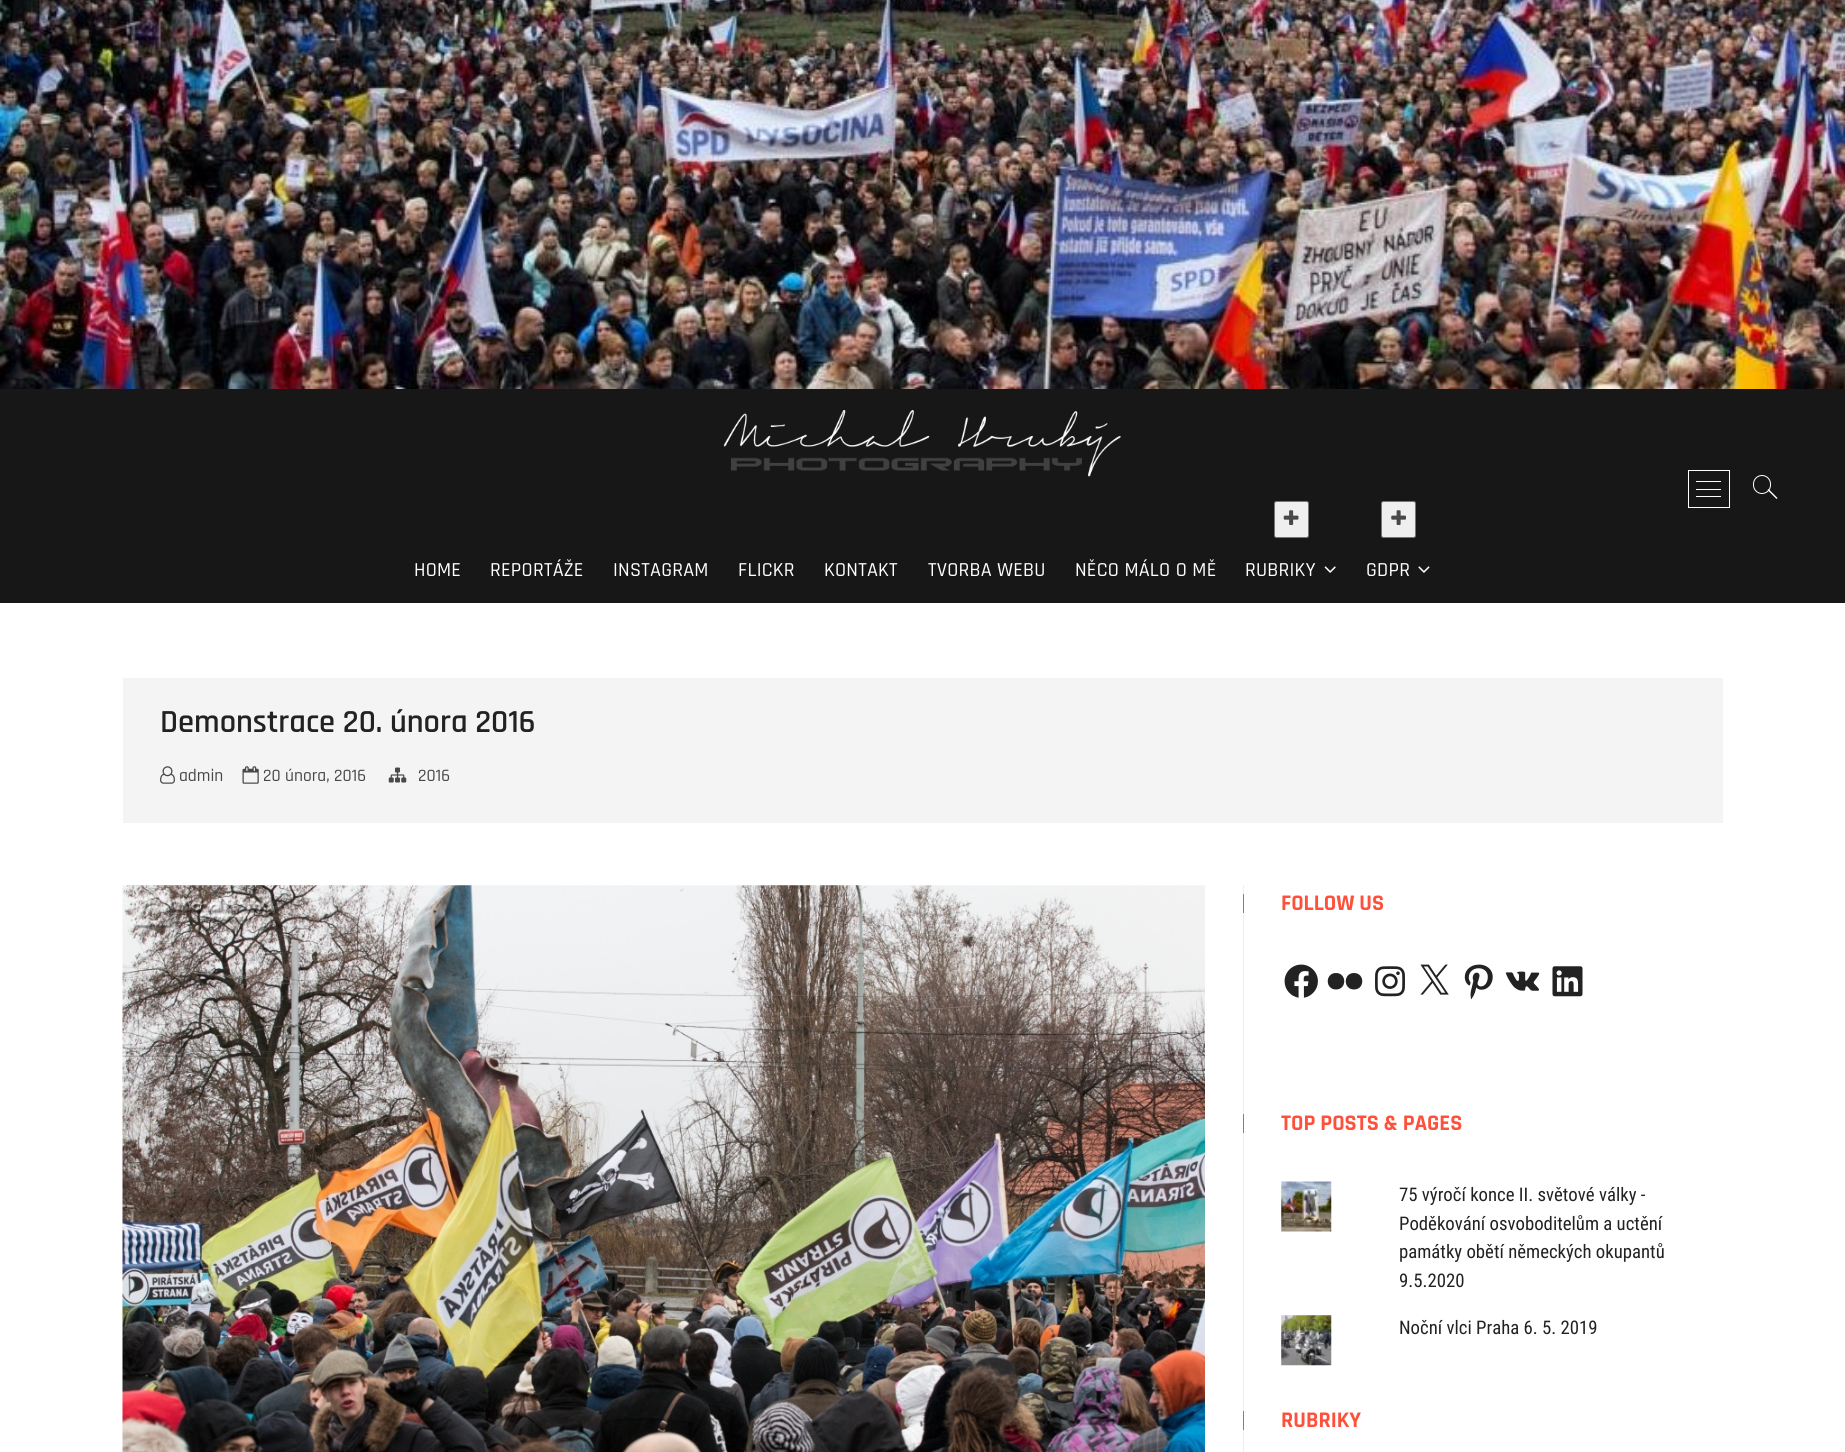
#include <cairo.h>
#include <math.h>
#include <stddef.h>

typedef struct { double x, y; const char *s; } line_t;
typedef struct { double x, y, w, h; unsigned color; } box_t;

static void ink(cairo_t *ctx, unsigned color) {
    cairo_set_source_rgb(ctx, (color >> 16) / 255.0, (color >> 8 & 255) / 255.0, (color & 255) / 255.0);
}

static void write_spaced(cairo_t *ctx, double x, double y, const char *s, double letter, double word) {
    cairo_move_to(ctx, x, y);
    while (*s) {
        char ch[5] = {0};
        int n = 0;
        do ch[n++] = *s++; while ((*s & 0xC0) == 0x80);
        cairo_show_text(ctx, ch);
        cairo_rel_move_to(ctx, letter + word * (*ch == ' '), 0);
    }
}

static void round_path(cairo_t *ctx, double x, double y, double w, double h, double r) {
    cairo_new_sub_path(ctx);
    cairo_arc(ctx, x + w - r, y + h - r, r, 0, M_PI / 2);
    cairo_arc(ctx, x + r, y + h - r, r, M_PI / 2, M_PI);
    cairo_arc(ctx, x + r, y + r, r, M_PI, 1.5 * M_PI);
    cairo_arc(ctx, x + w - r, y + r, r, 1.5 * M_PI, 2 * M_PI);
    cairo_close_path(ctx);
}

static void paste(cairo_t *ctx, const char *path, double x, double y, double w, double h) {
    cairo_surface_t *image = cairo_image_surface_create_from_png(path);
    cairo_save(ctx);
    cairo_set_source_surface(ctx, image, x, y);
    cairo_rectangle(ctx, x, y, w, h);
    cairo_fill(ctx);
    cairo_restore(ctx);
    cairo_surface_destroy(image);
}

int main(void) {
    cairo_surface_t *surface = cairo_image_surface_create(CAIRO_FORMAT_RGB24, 1845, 1452);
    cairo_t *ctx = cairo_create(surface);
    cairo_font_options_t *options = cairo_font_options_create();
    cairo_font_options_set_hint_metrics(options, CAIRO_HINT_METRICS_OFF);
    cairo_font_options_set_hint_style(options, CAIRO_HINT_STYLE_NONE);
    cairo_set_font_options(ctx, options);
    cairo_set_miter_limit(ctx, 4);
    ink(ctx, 0xFFFFFF);
    cairo_paint(ctx);
    paste(ctx, "media/1.png", 0, 0, 1845, 389);
    ink(ctx, 0x171717);
    cairo_rectangle(ctx, 0, 389, 1845, 214);
    cairo_fill(ctx);
    paste(ctx, "media/2.png", 723, 410, 398, 67);
    cairo_rectangle(ctx, 1688.5, 470.5, 41, 37);
    ink(ctx, 0xFFFFFF);
    cairo_set_line_width(ctx, 1);
    cairo_stroke(ctx);
    {
        static const box_t items[] = {
            {1696, 489, 25, 1, 0xFFFFFF},
            {1696, 481, 25, 1, 0xFFFFFF},
            {1696, 496, 25, 1, 0xFFFFFF},
        };
        for (size_t i = 0; i < sizeof items / sizeof *items; i++) {
            ink(ctx, items[i].color);
            cairo_rectangle(ctx, items[i].x, items[i].y, items[i].w, items[i].h);
            cairo_fill(ctx);
        }
    }
    round_path(ctx, 1753.5, 475.5, 17, 18, 8.5);
    cairo_stroke(ctx);
    cairo_new_path(ctx);
    cairo_move_to(ctx, 1767.5, 490);
    cairo_line_to(ctx, 1768.5, 489);
    cairo_line_to(ctx, 1777.5, 498);
    cairo_line_to(ctx, 1776.5, 499);
    cairo_close_path(ctx);
    cairo_fill(ctx);
    cairo_select_font_face(ctx, "Rajdhani Medium", CAIRO_FONT_SLANT_NORMAL, CAIRO_FONT_WEIGHT_NORMAL);
    cairo_set_font_size(ctx, 20);
    {
        static const line_t items[] = {
            {414, 576, "HOME"},
            {490, 576, "REPORTÁŽE"},
            {613, 576, "INSTAGRAM"},
            {738, 576, "FLICKR"},
            {824, 576, "KONTAKT"},
            {928, 576, "TVORBA WEBU"},
            {1075, 576, "NĚCO MÁLO O MĚ"},
        };
        for (size_t i = 0; i < sizeof items / sizeof *items; i++) {
            write_spaced(ctx, items[i].x, items[i].y, items[i].s, 0.25, 0);
        }
    }
    ink(ctx, 0xEFEFEF);
    round_path(ctx, 1274.5, 501.5, 34, 36, 2);
    cairo_fill_preserve(ctx);
    ink(ctx, 0x767676);
    cairo_stroke(ctx);
    paste(ctx, "media/3.png", 1283, 510, 16, 15);
    ink(ctx, 0xFFFFFF);
    write_spaced(ctx, 1245, 576, "RUBRIKY", 0.25, 0);
    paste(ctx, "media/4.png", 1324, 566, 12, 7);
    ink(ctx, 0xEFEFEF);
    round_path(ctx, 1381.5, 501.5, 34, 36, 2);
    cairo_fill_preserve(ctx);
    ink(ctx, 0x767676);
    cairo_stroke(ctx);
    paste(ctx, "media/5.png", 1391, 510, 15, 15);
    ink(ctx, 0xFFFFFF);
    write_spaced(ctx, 1366, 576, "GDPR", 0.25, 0);
    paste(ctx, "media/6.png", 1418, 566, 12, 7);
    ink(ctx, 0xF4F4F4);
    cairo_rectangle(ctx, 123, 678, 1600, 145);
    cairo_fill(ctx);
    cairo_select_font_face(ctx, "Rajdhani SemiBold", CAIRO_FONT_SLANT_NORMAL, CAIRO_FONT_WEIGHT_NORMAL);
    cairo_set_font_size(ctx, 32.5);
    ink(ctx, 0x222222);
    cairo_move_to(ctx, 160, 732);
    cairo_show_text(ctx, "Demonstrace 20. února 2016");
    paste(ctx, "media/7.png", 160, 766, 15, 18);
    cairo_select_font_face(ctx, "Rajdhani Medium", CAIRO_FONT_SLANT_NORMAL, CAIRO_FONT_WEIGHT_NORMAL);
    cairo_set_font_size(ctx, 17.5);
    ink(ctx, 0x484848);
    cairo_move_to(ctx, 179, 781);
    cairo_show_text(ctx, "admin");
    paste(ctx, "media/8.png", 242, 766, 17, 18);
    cairo_move_to(ctx, 263, 781);
    cairo_show_text(ctx, "20 února, 2016");
    paste(ctx, "media/9.png", 388, 767, 19, 16);
    cairo_move_to(ctx, 418, 781);
    cairo_show_text(ctx, "2016");
    paste(ctx, "media/10.png", 122, 885, 1083, 567);
    ink(ctx, 0xEEEEEE);
    cairo_rectangle(ctx, 1243, 885, 1, 567);
    cairo_fill(ctx);
    ink(ctx, 0xFD513B);
    cairo_rectangle(ctx, 1243, 894, 1, 19);
    cairo_fill(ctx);
    cairo_select_font_face(ctx, "Rajdhani", CAIRO_FONT_SLANT_NORMAL, CAIRO_FONT_WEIGHT_BOLD);
    cairo_set_font_size(ctx, 22.5);
    cairo_move_to(ctx, 1281, 910);
    cairo_show_text(ctx, "FOLLOW US");
    paste(ctx, "media/11.png", 1284, 964, 34, 34);
    ink(ctx, 0x222222);
    cairo_new_path(ctx);
    cairo_move_to(ctx, 1336, 973);
    cairo_curve_to(ctx, 1325, 973, 1325, 989.5, 1336, 989.5);
    cairo_curve_to(ctx, 1347, 989.5, 1347, 973, 1336, 973);
    cairo_close_path(ctx);
    cairo_move_to(ctx, 1354, 973);
    cairo_curve_to(ctx, 1343, 973, 1343, 989.5, 1354, 989.5);
    cairo_curve_to(ctx, 1365, 989.5, 1365, 973, 1354, 973);
    cairo_close_path(ctx);
    cairo_fill(ctx);
    paste(ctx, "media/12.png", 1375, 966, 30, 31);
    paste(ctx, "media/13.png", 1420, 964, 29, 31);
    paste(ctx, "media/14.png", 1464, 964, 29, 36);
    paste(ctx, "media/15.png", 1505, 971, 35, 20);
    paste(ctx, "media/16.png", 1552, 966, 31, 31);
    ink(ctx, 0xFD513B);
    cairo_rectangle(ctx, 1243, 1114, 1, 19);
    cairo_fill(ctx);
    cairo_move_to(ctx, 1281, 1130);
    cairo_show_text(ctx, "TOP POSTS & PAGES");
    paste(ctx, "media/17.png", 1281, 1181, 51, 51);
    cairo_select_font_face(ctx, "Roboto Condensed", CAIRO_FONT_SLANT_NORMAL, CAIRO_FONT_WEIGHT_NORMAL);
    cairo_set_font_size(ctx, 18.75);
    ink(ctx, 0x222222);
    {
        static const line_t items[] = {
            {1399, 1201, "75 výročí konce II. světové války -"},
            {1399, 1230, "Poděkování osvoboditelům a uctění"},
            {1399, 1258, "památky obětí německých okupantů"},
            {1399, 1287, "9.5.2020"},
        };
        for (size_t i = 0; i < sizeof items / sizeof *items; i++) {
            cairo_move_to(ctx, items[i].x, items[i].y);
            cairo_show_text(ctx, items[i].s);
        }
    }
    paste(ctx, "media/18.png", 1281, 1315, 51, 51);
    cairo_move_to(ctx, 1399, 1334);
    cairo_show_text(ctx, "Noční vlci Praha 6. 5. 2019");
    ink(ctx, 0xFD513B);
    cairo_rectangle(ctx, 1243, 1411, 1, 19);
    cairo_fill(ctx);
    cairo_select_font_face(ctx, "Rajdhani", CAIRO_FONT_SLANT_NORMAL, CAIRO_FONT_WEIGHT_BOLD);
    cairo_set_font_size(ctx, 22.5);
    cairo_move_to(ctx, 1281, 1427);
    cairo_show_text(ctx, "RUBRIKY");
    cairo_surface_write_to_png(surface, "image.png");
    cairo_font_options_destroy(options);
    cairo_destroy(ctx);
    cairo_surface_destroy(surface);
    return 0;
}
